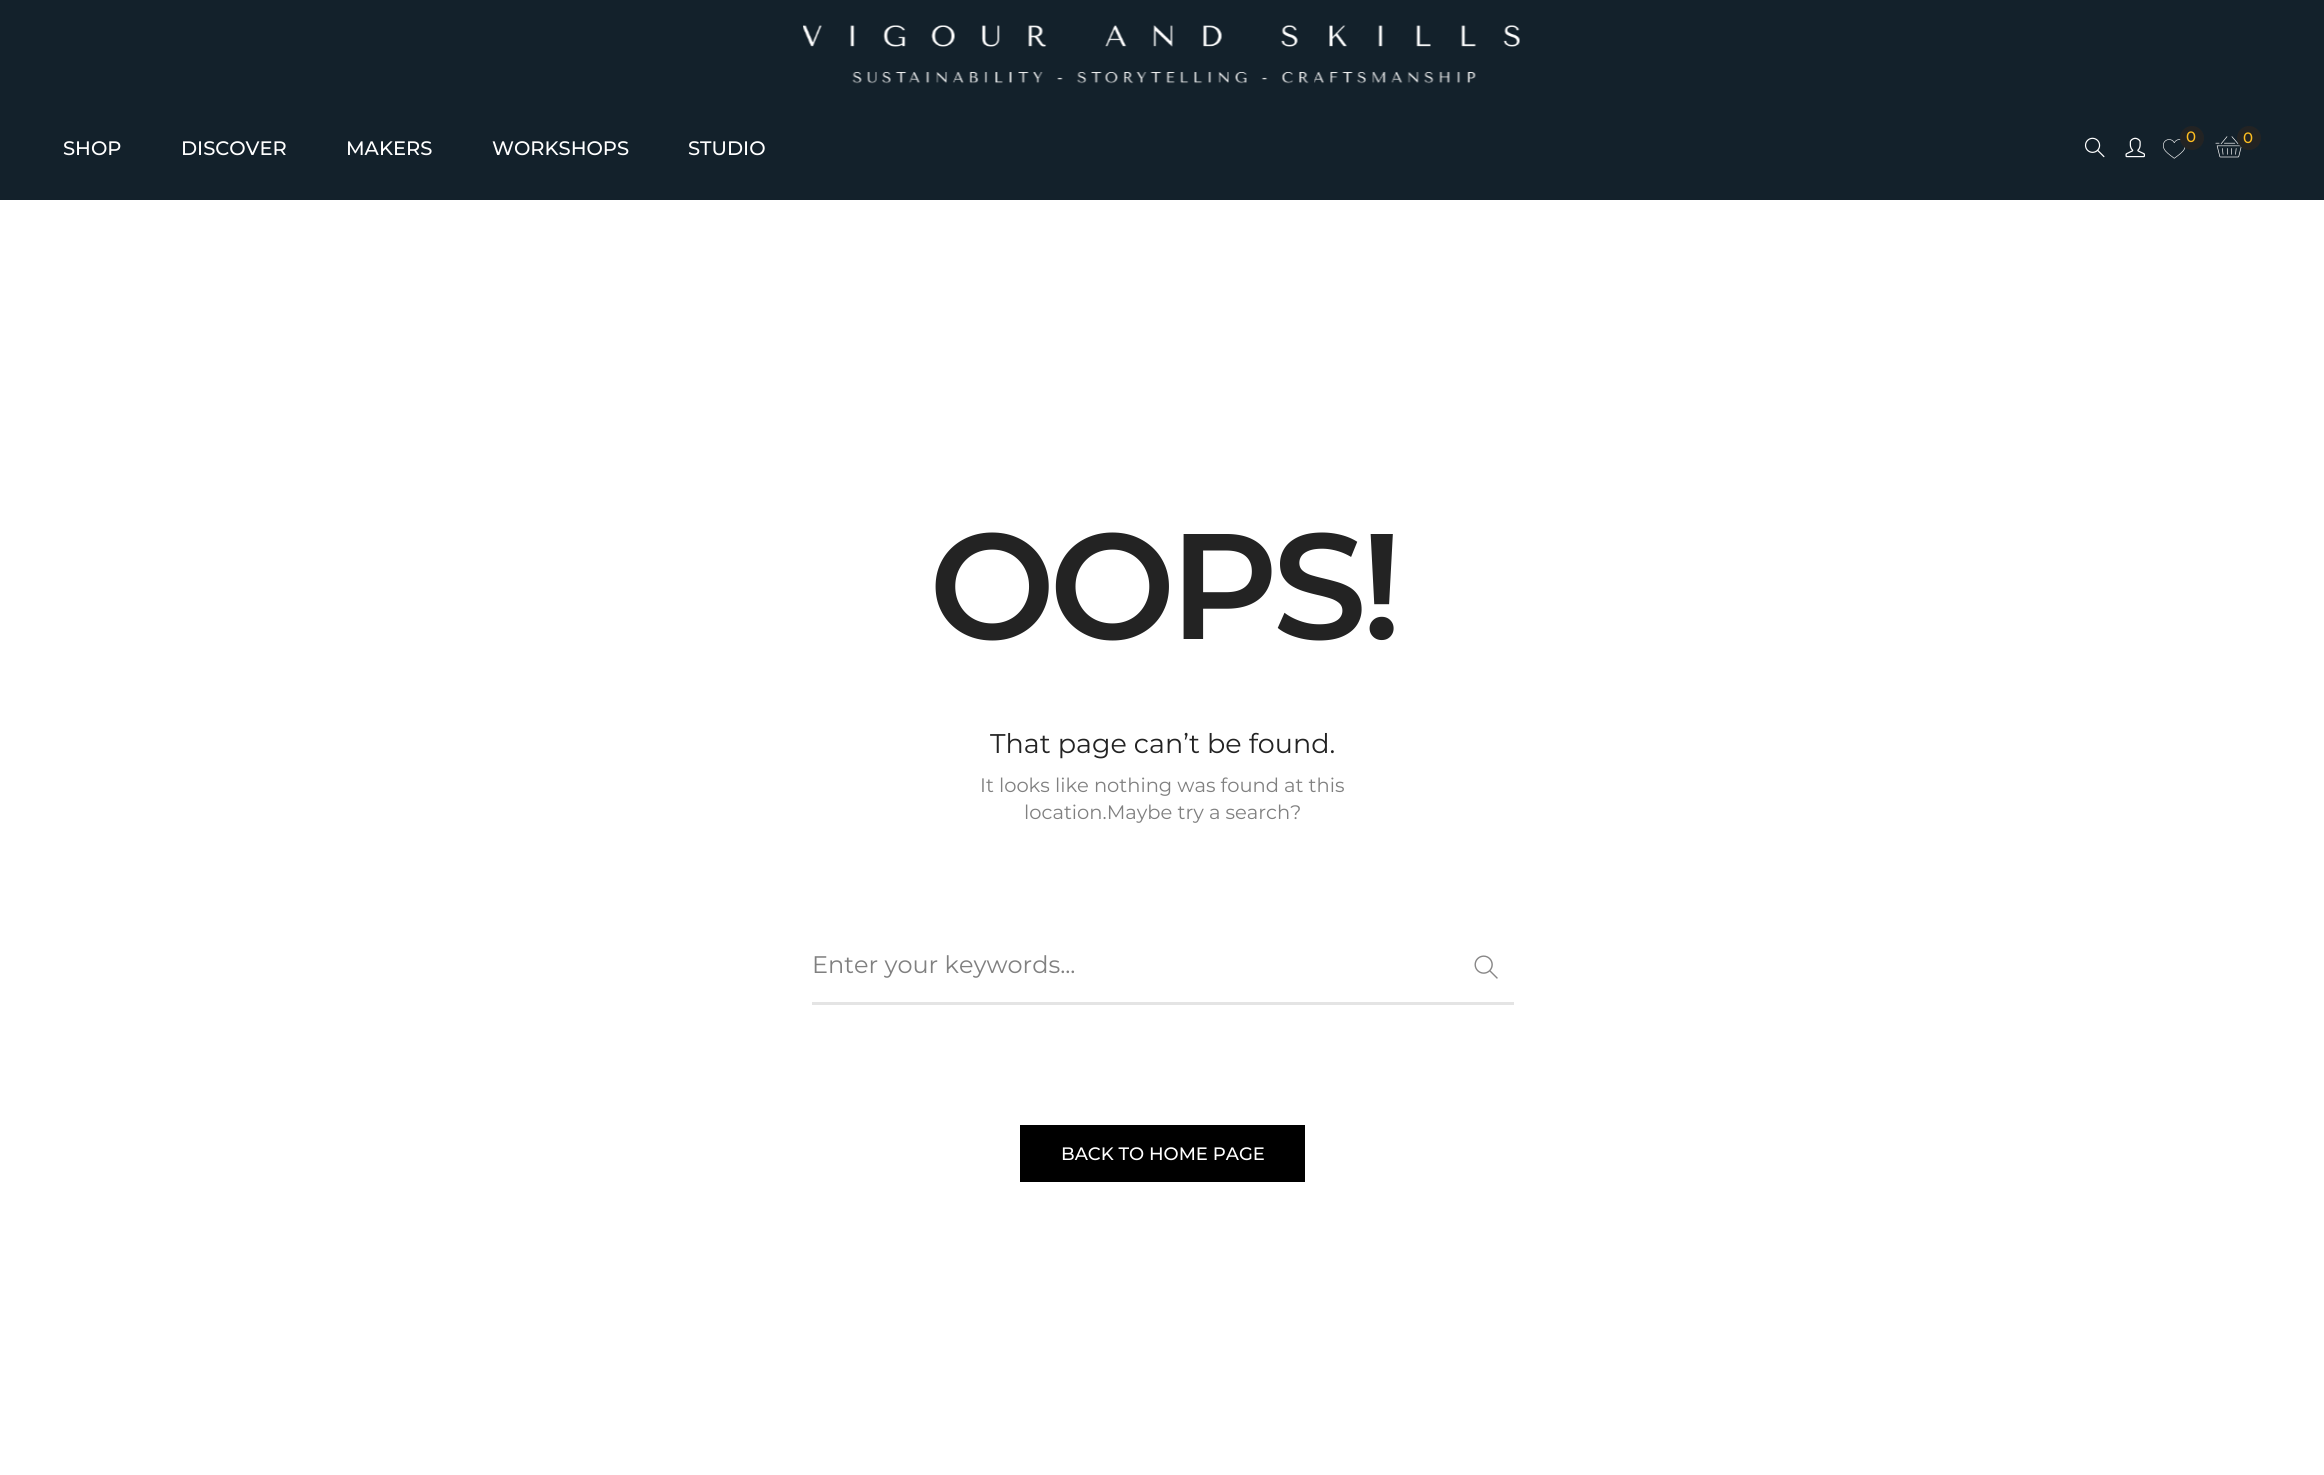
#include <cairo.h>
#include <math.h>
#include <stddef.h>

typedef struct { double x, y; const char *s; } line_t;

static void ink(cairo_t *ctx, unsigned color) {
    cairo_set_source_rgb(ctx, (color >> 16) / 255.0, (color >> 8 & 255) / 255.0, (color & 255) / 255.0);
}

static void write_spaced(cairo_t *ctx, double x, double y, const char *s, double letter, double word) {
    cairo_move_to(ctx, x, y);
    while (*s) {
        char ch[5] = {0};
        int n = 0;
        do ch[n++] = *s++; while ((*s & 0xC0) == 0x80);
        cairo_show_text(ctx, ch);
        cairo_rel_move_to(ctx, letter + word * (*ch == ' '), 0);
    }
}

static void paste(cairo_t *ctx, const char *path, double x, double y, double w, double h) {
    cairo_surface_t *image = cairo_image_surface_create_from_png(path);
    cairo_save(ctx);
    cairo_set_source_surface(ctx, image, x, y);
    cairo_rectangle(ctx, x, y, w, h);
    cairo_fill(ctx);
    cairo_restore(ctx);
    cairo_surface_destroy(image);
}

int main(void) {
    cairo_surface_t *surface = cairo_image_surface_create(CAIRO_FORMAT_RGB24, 2324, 1475);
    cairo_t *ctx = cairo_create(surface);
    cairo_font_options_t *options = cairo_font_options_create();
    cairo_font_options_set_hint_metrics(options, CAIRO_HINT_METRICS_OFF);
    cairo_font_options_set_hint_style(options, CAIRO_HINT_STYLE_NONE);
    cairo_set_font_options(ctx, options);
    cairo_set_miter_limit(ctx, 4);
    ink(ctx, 0xFFFFFF);
    cairo_paint(ctx);
    ink(ctx, 0x13212B);
    cairo_rectangle(ctx, 0, 0, 2324, 200);
    cairo_fill(ctx);
    paste(ctx, "media/1.png", 803, 25, 717, 22);
    paste(ctx, "media/2.png", 852, 72, 624, 12);
    paste(ctx, "media/3.png", 2084, 137, 21, 21);
    paste(ctx, "media/4.png", 2125, 137, 20, 21);
    paste(ctx, "media/5.png", 2163, 139, 23, 20);
    ink(ctx, 0x232323);
    cairo_arc(ctx, 2192, 138, 12, 0, 2 * M_PI);
    cairo_fill(ctx);
    cairo_select_font_face(ctx, "Montserrat Medium", CAIRO_FONT_SLANT_NORMAL, CAIRO_FONT_WEIGHT_NORMAL);
    cairo_set_font_size(ctx, 15);
    ink(ctx, 0xFEBD20);
    cairo_move_to(ctx, 2186, 142);
    cairo_show_text(ctx, "0");
    paste(ctx, "media/6.png", 2215, 136, 27, 22);
    ink(ctx, 0x232323);
    cairo_arc(ctx, 2249, 138, 12, 0, 2 * M_PI);
    cairo_fill(ctx);
    ink(ctx, 0xFEBD20);
    cairo_move_to(ctx, 2243, 143);
    cairo_show_text(ctx, "0");
    cairo_set_font_size(ctx, 19.5);
    ink(ctx, 0xFFFFFF);
    {
        static const line_t items[] = {
            {63, 155, "SHOP"},
            {181, 155, "DISCOVER"},
            {346, 155, "MAKERS"},
            {492, 155, "WORKSHOPS"},
            {688, 155, "STUDIO"},
        };
        for (size_t i = 0; i < sizeof items / sizeof *items; i++) {
            cairo_move_to(ctx, items[i].x, items[i].y);
            cairo_show_text(ctx, items[i].s);
        }
    }
    cairo_select_font_face(ctx, "Montserrat SemiBold", CAIRO_FONT_SLANT_NORMAL, CAIRO_FONT_WEIGHT_NORMAL);
    cairo_set_font_size(ctx, 150);
    ink(ctx, 0x232323);
    write_spaced(ctx, 929, 639, "OOPS!", -6, 0);
    cairo_select_font_face(ctx, "Montserrat", CAIRO_FONT_SLANT_NORMAL, CAIRO_FONT_WEIGHT_NORMAL);
    cairo_set_font_size(ctx, 27);
    cairo_move_to(ctx, 990, 753);
    cairo_show_text(ctx, "That page can’t be found.");
    cairo_set_font_size(ctx, 19.5);
    ink(ctx, 0x808080);
    cairo_move_to(ctx, 980, 792);
    cairo_show_text(ctx, "It looks like nothing was found at this");
    cairo_move_to(ctx, 1024, 819);
    cairo_show_text(ctx, "location.Maybe try a search?");
    ink(ctx, 0xE4E4E4);
    cairo_rectangle(ctx, 812, 1002, 702, 3);
    cairo_fill(ctx);
    cairo_set_font_size(ctx, 24);
    ink(ctx, 0x808080);
    cairo_move_to(ctx, 812, 973);
    cairo_show_text(ctx, "Enter your keywords...");
    paste(ctx, "media/7.png", 1474, 955, 24, 24);
    ink(ctx, 0x000000);
    cairo_rectangle(ctx, 1020, 1125, 285, 57);
    cairo_fill(ctx);
    cairo_select_font_face(ctx, "Montserrat Medium", CAIRO_FONT_SLANT_NORMAL, CAIRO_FONT_WEIGHT_NORMAL);
    cairo_set_font_size(ctx, 18);
    ink(ctx, 0xFFFFFF);
    cairo_move_to(ctx, 1061, 1160);
    cairo_show_text(ctx, "BACK TO HOME PAGE");
    cairo_surface_write_to_png(surface, "image.png");
    cairo_font_options_destroy(options);
    cairo_destroy(ctx);
    cairo_surface_destroy(surface);
    return 0;
}
